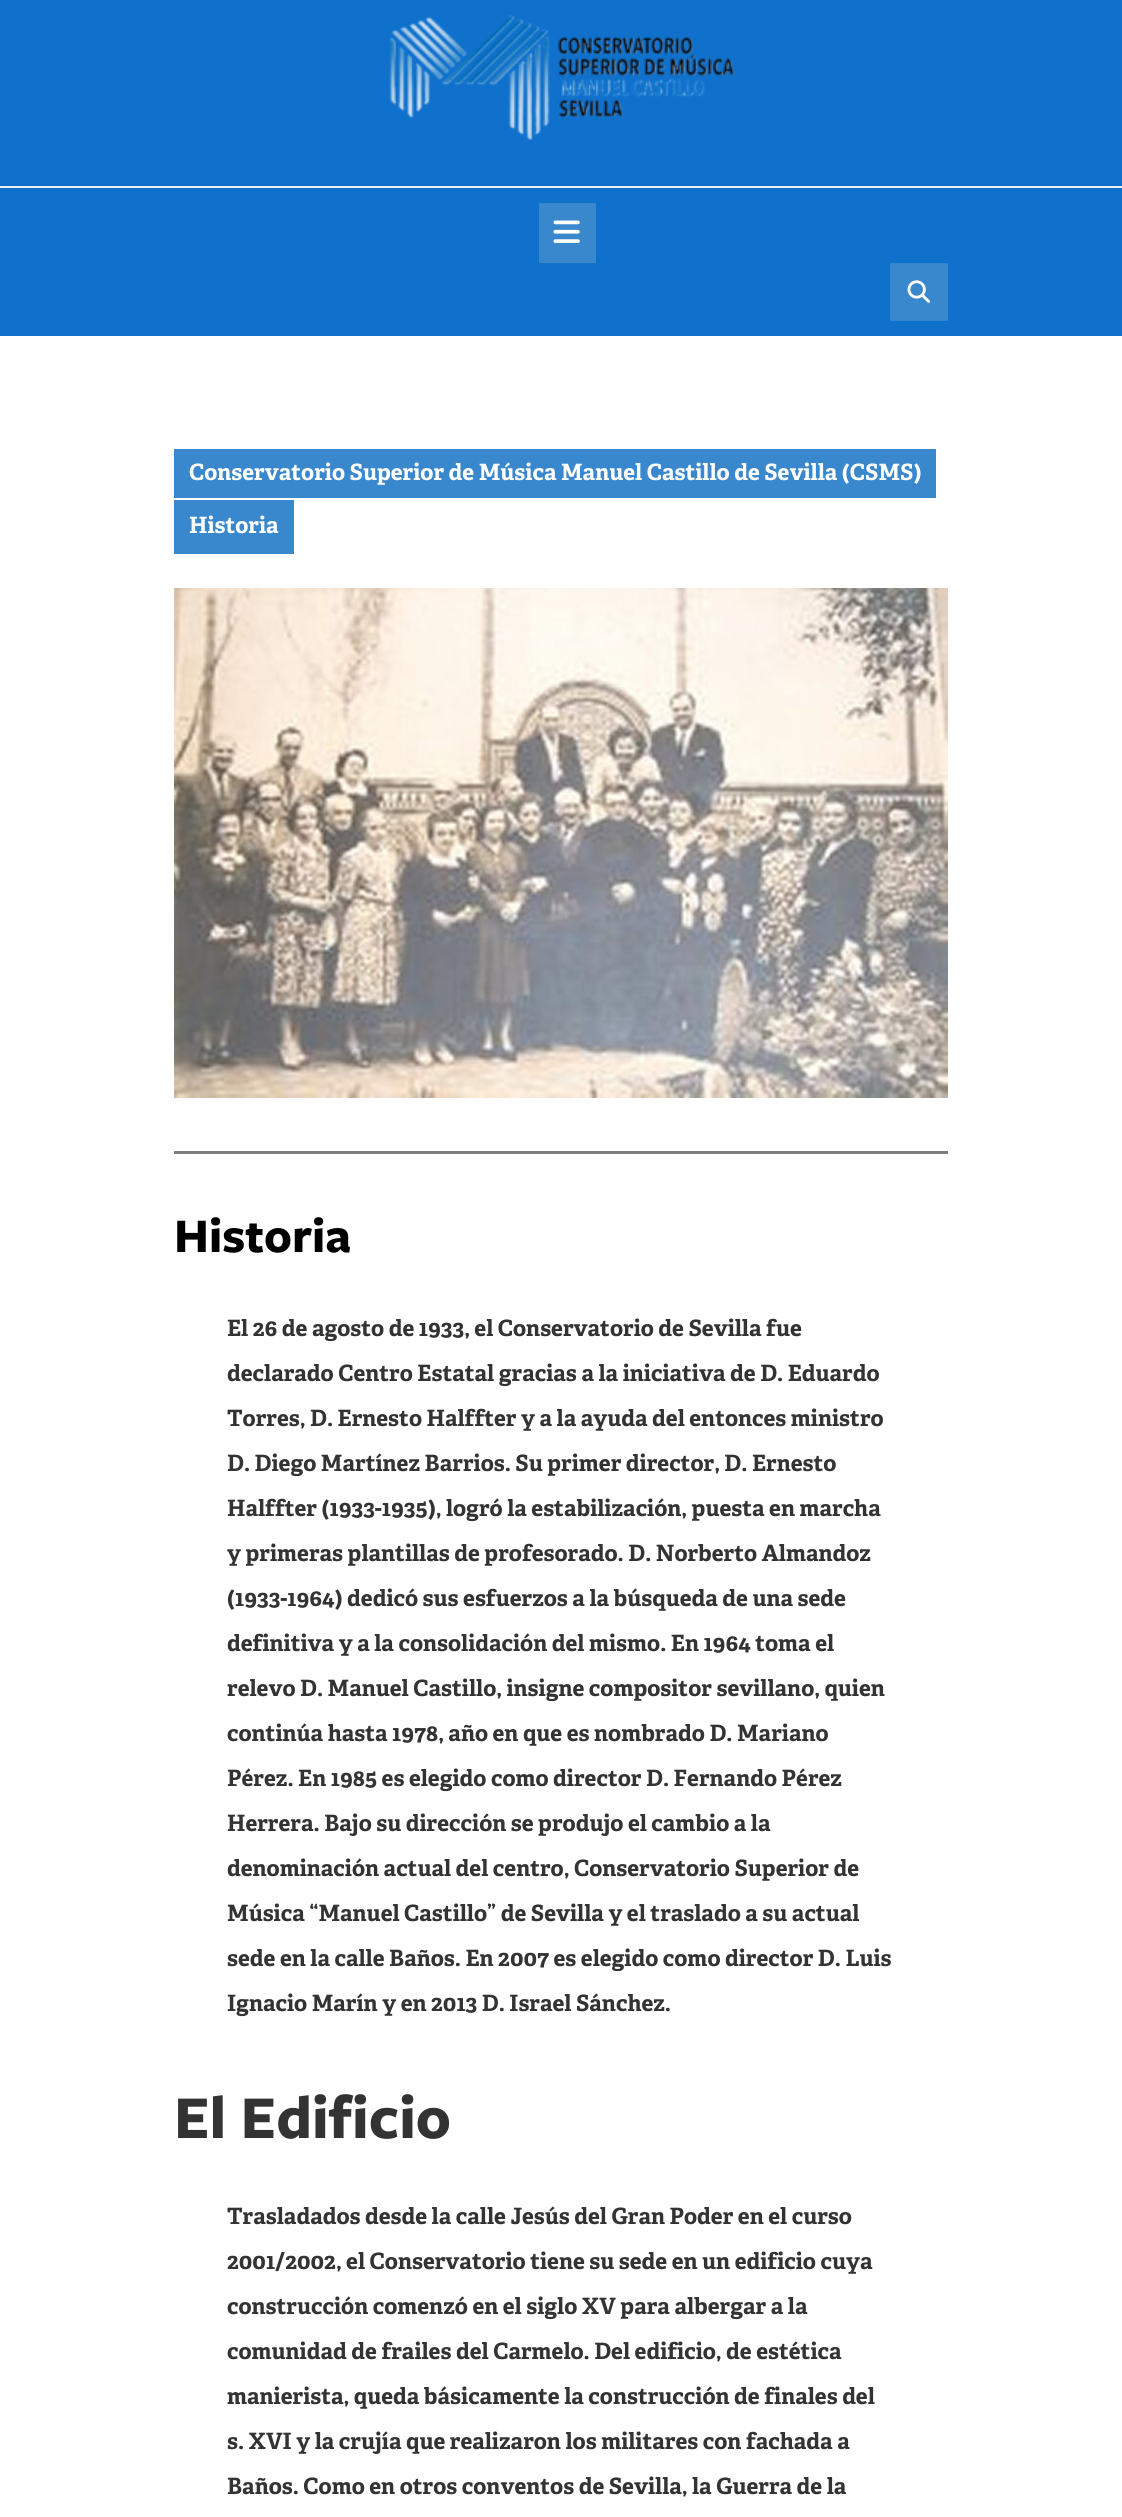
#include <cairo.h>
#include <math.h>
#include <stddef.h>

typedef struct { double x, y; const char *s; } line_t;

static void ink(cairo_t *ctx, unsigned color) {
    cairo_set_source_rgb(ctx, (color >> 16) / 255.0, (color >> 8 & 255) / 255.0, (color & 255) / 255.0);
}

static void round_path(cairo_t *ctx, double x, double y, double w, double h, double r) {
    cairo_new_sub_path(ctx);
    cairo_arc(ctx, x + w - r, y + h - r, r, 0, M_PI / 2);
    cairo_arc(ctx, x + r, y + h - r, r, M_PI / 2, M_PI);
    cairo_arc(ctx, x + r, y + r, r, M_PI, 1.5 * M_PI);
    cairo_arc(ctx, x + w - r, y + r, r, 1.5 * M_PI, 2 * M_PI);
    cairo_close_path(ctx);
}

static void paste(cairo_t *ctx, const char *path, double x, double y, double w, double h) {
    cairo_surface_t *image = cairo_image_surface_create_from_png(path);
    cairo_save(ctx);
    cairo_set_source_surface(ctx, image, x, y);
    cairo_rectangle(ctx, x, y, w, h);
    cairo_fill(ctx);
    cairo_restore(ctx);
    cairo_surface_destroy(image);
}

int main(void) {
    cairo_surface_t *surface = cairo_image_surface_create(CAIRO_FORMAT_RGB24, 1122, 2517);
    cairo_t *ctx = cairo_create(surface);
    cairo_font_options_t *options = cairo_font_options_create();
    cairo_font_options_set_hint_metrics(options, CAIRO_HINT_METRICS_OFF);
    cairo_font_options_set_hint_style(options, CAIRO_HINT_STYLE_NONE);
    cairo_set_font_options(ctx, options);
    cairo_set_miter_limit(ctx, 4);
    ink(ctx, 0xFFFFFF);
    cairo_paint(ctx);
    ink(ctx, 0x1071CC);
    cairo_rectangle(ctx, 0, 0, 1122, 336);
    cairo_fill(ctx);
    ink(ctx, 0xEEEEEE);
    cairo_rectangle(ctx, 0, 186, 1122, 2);
    cairo_fill(ctx);
    paste(ctx, "media/1.png", 389, 15, 346, 125);
    ink(ctx, 0x3987CC);
    cairo_rectangle(ctx, 539, 203, 57, 60);
    cairo_fill(ctx);
    paste(ctx, "media/2.png", 553, 220, 27, 23);
    round_path(ctx, 890, 263, 58, 58, 1.5);
    cairo_fill(ctx);
    paste(ctx, "media/3.png", 907, 280, 23, 23);
    cairo_rectangle(ctx, 174, 449, 762, 49);
    cairo_fill(ctx);
    cairo_select_font_face(ctx, "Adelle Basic", CAIRO_FONT_SLANT_NORMAL, CAIRO_FONT_WEIGHT_BOLD);
    cairo_set_font_size(ctx, 22.5);
    ink(ctx, 0xFFFFFF);
    cairo_move_to(ctx, 189, 480);
    cairo_show_text(ctx, "Conservatorio Superior de Música Manuel Castillo de Sevilla (CSMS)");
    ink(ctx, 0x3987CC);
    cairo_rectangle(ctx, 174, 500, 120, 54);
    cairo_fill(ctx);
    ink(ctx, 0xFFFFFF);
    cairo_move_to(ctx, 189, 533);
    cairo_show_text(ctx, "Historia");
    paste(ctx, "media/4.png", 174, 588, 774, 510);
    ink(ctx, 0x7E7E7E);
    cairo_rectangle(ctx, 174, 1151, 774, 3);
    cairo_fill(ctx);
    cairo_select_font_face(ctx, "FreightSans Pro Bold", CAIRO_FONT_SLANT_NORMAL, CAIRO_FONT_WEIGHT_BOLD);
    cairo_set_font_size(ctx, 50);
    ink(ctx, 0x000000);
    cairo_move_to(ctx, 174, 1252);
    cairo_show_text(ctx, "Historia");
    cairo_select_font_face(ctx, "Adelle Basic", CAIRO_FONT_SLANT_NORMAL, CAIRO_FONT_WEIGHT_BOLD);
    cairo_set_font_size(ctx, 22.5);
    ink(ctx, 0x333333);
    {
        static const line_t items[] = {
            {227, 1336, "El 26 de agosto de 1933, el Conservatorio de Sevilla fue"},
            {227, 1381, "declarado Centro Estatal gracias a la iniciativa de D. Eduardo"},
            {227, 1426, "Torres, D. Ernesto Halffter y a la ayuda del entonces ministro"},
            {227, 1471, "D. Diego Martínez Barrios. Su primer director, D. Ernesto"},
            {227, 1516, "Halffter (1933-1935), logró la estabilización, puesta en marcha"},
            {227, 1561, "y primeras plantillas de profesorado. D. Norberto Almandoz"},
            {227, 1606, "(1933-1964) dedicó sus esfuerzos a la búsqueda de una sede"},
            {227, 1651, "definitiva y a la consolidación del mismo. En 1964 toma el"},
            {227, 1696, "relevo D. Manuel Castillo, insigne compositor sevillano, quien"},
            {227, 1741, "continúa hasta 1978, año en que es nombrado D. Mariano"},
            {227, 1786, "Pérez. En 1985 es elegido como director D. Fernando Pérez"},
            {227, 1831, "Herrera. Bajo su dirección se produjo el cambio a la"},
            {227, 1876, "denominación actual del centro, Conservatorio Superior de"},
            {227, 1921, "Música “Manuel Castillo” de Sevilla y el traslado a su actual"},
            {227, 1966, "sede en la calle Baños. En 2007 es elegido como director D. Luis"},
            {227, 2011, "Ignacio Marín y en 2013 D. Israel Sánchez."},
        };
        for (size_t i = 0; i < sizeof items / sizeof *items; i++) {
            cairo_move_to(ctx, items[i].x, items[i].y);
            cairo_show_text(ctx, items[i].s);
        }
    }
    cairo_select_font_face(ctx, "FreightSans Pro Bold", CAIRO_FONT_SLANT_NORMAL, CAIRO_FONT_WEIGHT_BOLD);
    cairo_set_font_size(ctx, 63);
    cairo_move_to(ctx, 174, 2138);
    cairo_show_text(ctx, "El Edificio");
    cairo_select_font_face(ctx, "Adelle Basic", CAIRO_FONT_SLANT_NORMAL, CAIRO_FONT_WEIGHT_BOLD);
    cairo_set_font_size(ctx, 22.5);
    {
        static const line_t items[] = {
            {227, 2224, "Trasladados desde la calle Jesús del Gran Poder en el curso"},
            {227, 2269, "2001/2002, el Conservatorio tiene su sede en un edificio cuya"},
            {227, 2314, "construcción comenzó en el siglo XV para albergar a la"},
            {227, 2359, "comunidad de frailes del Carmelo. Del edificio, de estética"},
            {227, 2404, "manierista, queda básicamente la construcción de finales del"},
            {227, 2449, "s. XVI y la crujía que realizaron los militares con fachada a"},
            {227, 2494, "Baños. Como en otros conventos de Sevilla, la Guerra de la"},
        };
        for (size_t i = 0; i < sizeof items / sizeof *items; i++) {
            cairo_move_to(ctx, items[i].x, items[i].y);
            cairo_show_text(ctx, items[i].s);
        }
    }
    cairo_surface_write_to_png(surface, "image.png");
    cairo_font_options_destroy(options);
    cairo_destroy(ctx);
    cairo_surface_destroy(surface);
    return 0;
}
